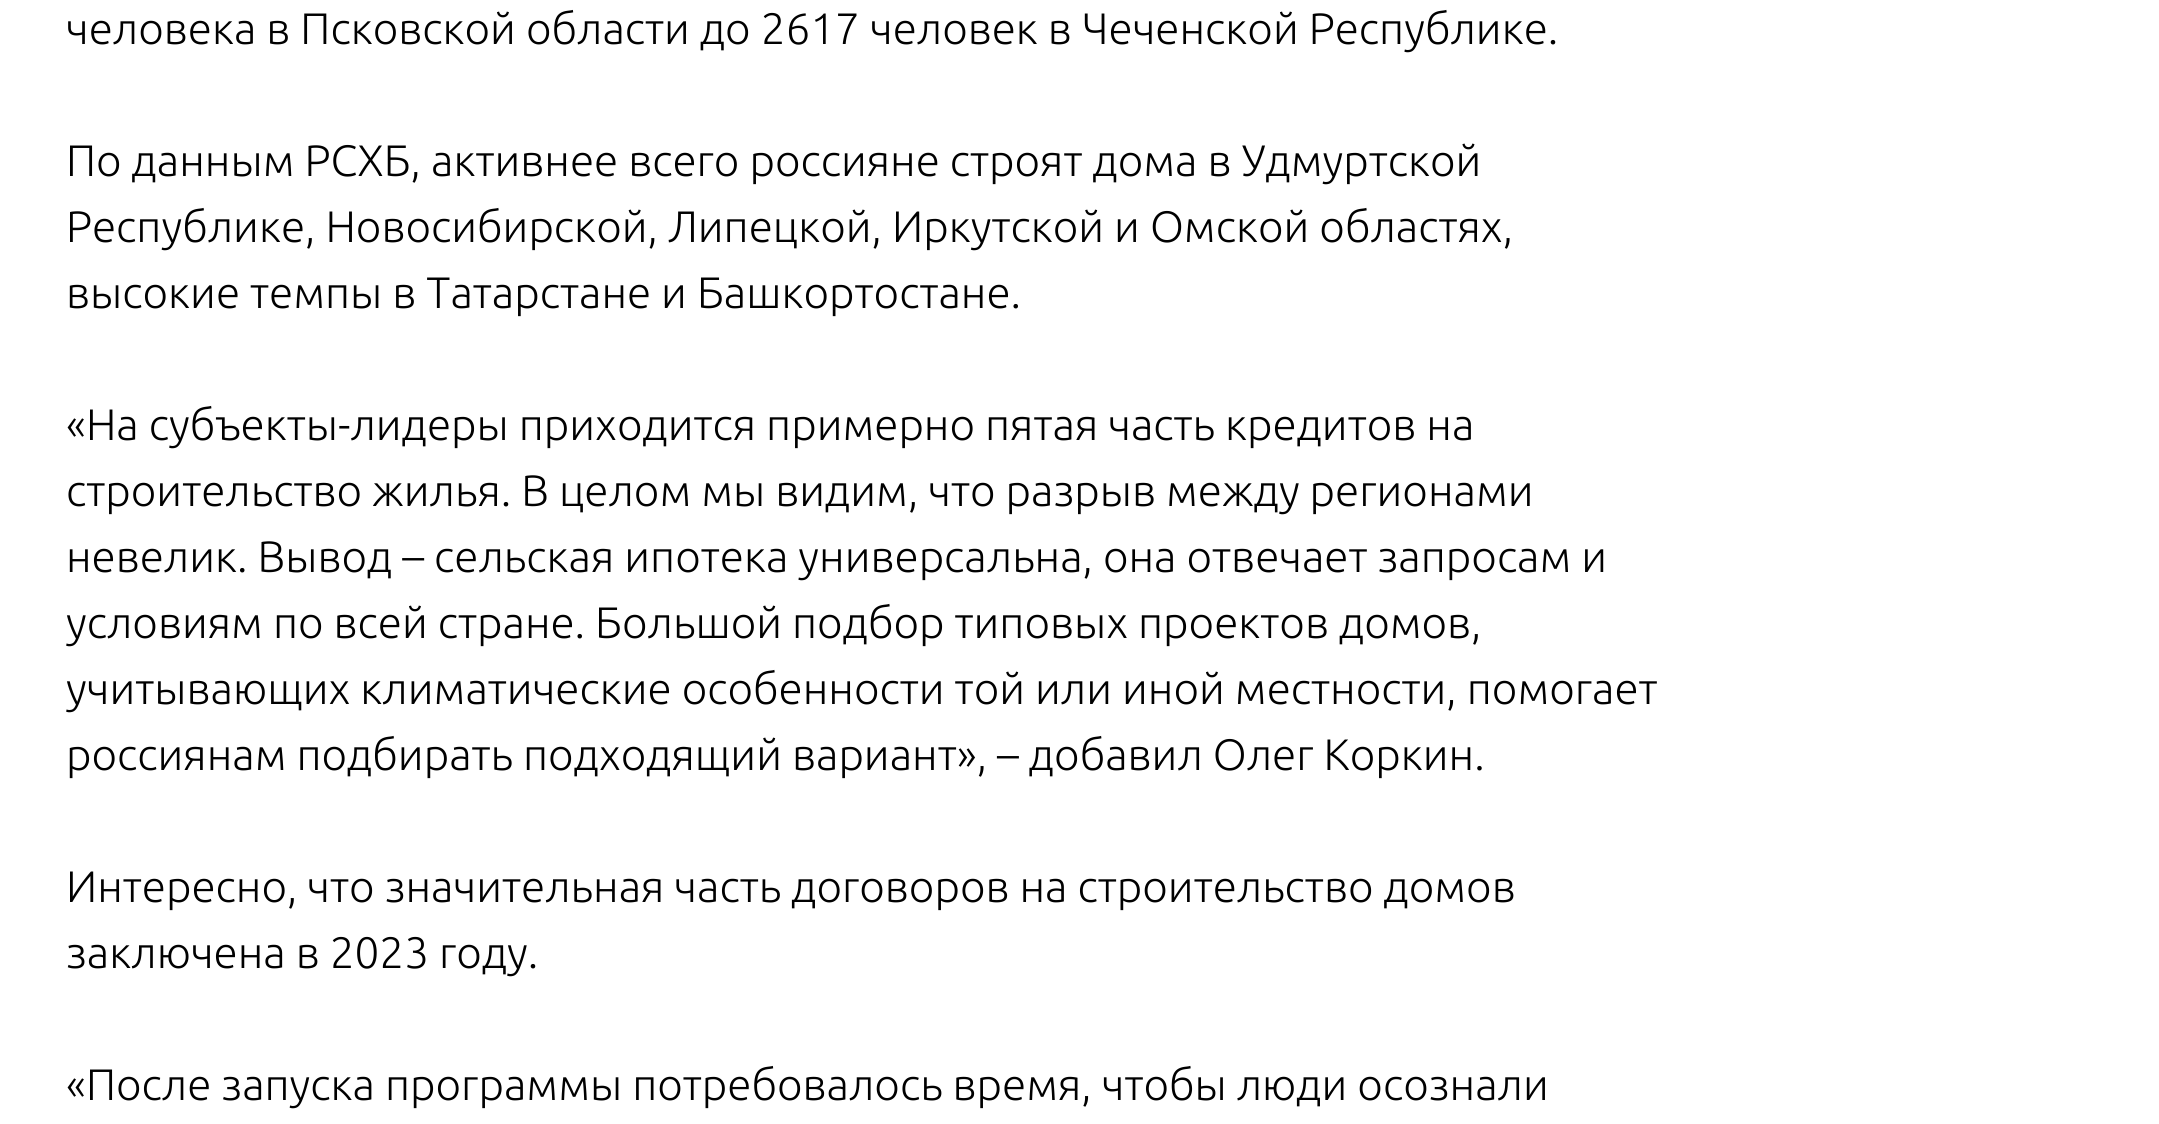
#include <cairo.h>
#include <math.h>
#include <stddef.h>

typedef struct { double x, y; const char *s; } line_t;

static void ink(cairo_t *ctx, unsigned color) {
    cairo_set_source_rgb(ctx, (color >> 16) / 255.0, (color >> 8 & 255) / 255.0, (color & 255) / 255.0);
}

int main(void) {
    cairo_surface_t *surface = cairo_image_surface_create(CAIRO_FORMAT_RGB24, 2159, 1124);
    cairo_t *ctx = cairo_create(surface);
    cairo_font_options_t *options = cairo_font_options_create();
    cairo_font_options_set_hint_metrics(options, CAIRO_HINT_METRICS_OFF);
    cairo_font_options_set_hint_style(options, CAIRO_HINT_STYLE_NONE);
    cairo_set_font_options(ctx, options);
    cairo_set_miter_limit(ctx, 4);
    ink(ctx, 0xFFFFFF);
    cairo_paint(ctx);
    cairo_select_font_face(ctx, "Ubuntu Light", CAIRO_FONT_SLANT_NORMAL, CAIRO_FONT_WEIGHT_NORMAL);
    cairo_set_font_size(ctx, 44);
    ink(ctx, 0x000000);
    {
        static const line_t items[] = {
            {66, 44, "человека в Псковской области до 2617 человек в Чеченской Республике."},
            {66, 176, "По данным РСХБ, активнее всего россияне строят дома в Удмуртской"},
            {66, 242, "Республике, Новосибирской, Липецкой, Иркутской и Омской областях,"},
            {66, 308, "высокие темпы в Татарстане и Башкортостане."},
            {66, 440, "«На субъекты-лидеры приходится примерно пятая часть кредитов на"},
            {66, 506, "строительство жилья. В целом мы видим, что разрыв между регионами"},
            {66, 572, "невелик. Вывод – сельская ипотека универсальна, она отвечает запросам и"},
            {66, 638, "условиям по всей стране. Большой подбор типовых проектов домов,"},
            {66, 704, "учитывающих климатические особенности той или иной местности, помогает"},
            {66, 770, "россиянам подбирать подходящий вариант», – добавил Олег Коркин."},
            {66, 902, "Интересно, что значительная часть договоров на строительство домов"},
            {66, 968, "заключена в 2023 году."},
            {66, 1100, "«После запуска программы потребовалось время, чтобы люди осознали"},
        };
        for (size_t i = 0; i < sizeof items / sizeof *items; i++) {
            cairo_move_to(ctx, items[i].x, items[i].y);
            cairo_show_text(ctx, items[i].s);
        }
    }
    cairo_surface_write_to_png(surface, "image.png");
    cairo_font_options_destroy(options);
    cairo_destroy(ctx);
    cairo_surface_destroy(surface);
    return 0;
}
